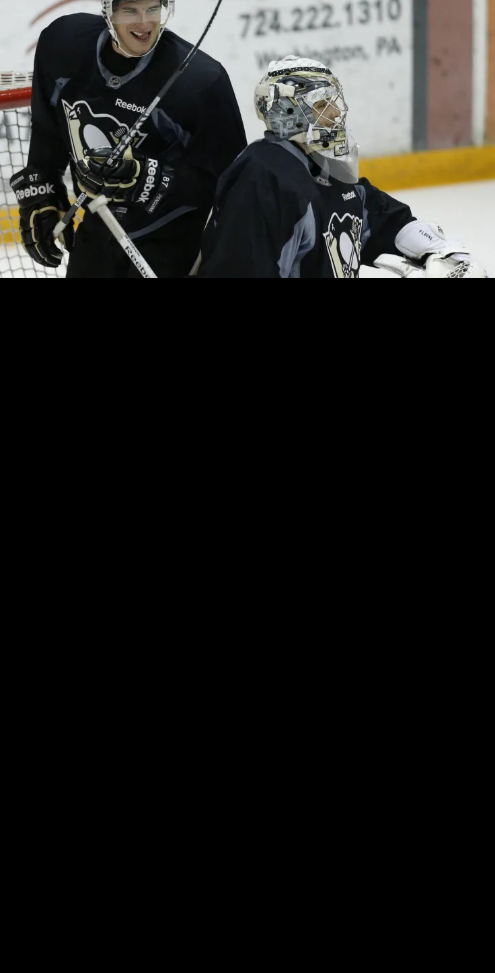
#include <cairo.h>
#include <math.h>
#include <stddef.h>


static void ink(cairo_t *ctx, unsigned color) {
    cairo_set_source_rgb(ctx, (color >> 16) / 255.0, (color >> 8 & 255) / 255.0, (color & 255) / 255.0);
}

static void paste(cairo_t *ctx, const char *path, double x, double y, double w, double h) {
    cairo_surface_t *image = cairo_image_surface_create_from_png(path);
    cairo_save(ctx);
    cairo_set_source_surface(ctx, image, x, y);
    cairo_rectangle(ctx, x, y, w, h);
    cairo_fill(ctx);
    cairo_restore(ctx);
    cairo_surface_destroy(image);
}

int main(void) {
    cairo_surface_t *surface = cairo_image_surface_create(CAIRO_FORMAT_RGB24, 495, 973);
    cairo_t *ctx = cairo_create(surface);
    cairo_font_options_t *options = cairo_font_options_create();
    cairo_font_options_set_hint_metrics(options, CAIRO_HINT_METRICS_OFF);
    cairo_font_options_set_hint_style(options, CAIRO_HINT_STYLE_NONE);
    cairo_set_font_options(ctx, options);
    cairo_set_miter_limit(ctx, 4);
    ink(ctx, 0x000000);
    cairo_paint(ctx);
    paste(ctx, "media/1.png", 0, 0, 495, 278);
    cairo_surface_write_to_png(surface, "image.png");
    cairo_font_options_destroy(options);
    cairo_destroy(ctx);
    cairo_surface_destroy(surface);
    return 0;
}
